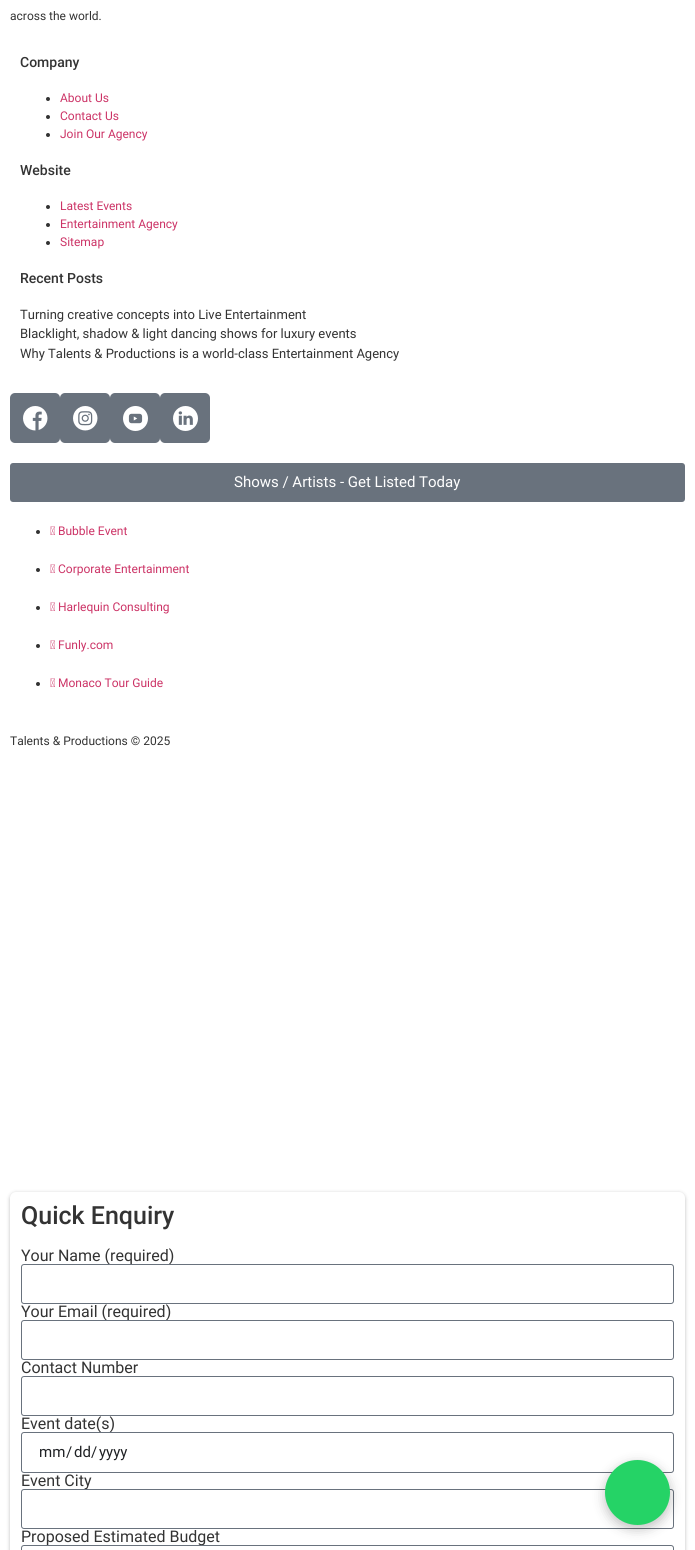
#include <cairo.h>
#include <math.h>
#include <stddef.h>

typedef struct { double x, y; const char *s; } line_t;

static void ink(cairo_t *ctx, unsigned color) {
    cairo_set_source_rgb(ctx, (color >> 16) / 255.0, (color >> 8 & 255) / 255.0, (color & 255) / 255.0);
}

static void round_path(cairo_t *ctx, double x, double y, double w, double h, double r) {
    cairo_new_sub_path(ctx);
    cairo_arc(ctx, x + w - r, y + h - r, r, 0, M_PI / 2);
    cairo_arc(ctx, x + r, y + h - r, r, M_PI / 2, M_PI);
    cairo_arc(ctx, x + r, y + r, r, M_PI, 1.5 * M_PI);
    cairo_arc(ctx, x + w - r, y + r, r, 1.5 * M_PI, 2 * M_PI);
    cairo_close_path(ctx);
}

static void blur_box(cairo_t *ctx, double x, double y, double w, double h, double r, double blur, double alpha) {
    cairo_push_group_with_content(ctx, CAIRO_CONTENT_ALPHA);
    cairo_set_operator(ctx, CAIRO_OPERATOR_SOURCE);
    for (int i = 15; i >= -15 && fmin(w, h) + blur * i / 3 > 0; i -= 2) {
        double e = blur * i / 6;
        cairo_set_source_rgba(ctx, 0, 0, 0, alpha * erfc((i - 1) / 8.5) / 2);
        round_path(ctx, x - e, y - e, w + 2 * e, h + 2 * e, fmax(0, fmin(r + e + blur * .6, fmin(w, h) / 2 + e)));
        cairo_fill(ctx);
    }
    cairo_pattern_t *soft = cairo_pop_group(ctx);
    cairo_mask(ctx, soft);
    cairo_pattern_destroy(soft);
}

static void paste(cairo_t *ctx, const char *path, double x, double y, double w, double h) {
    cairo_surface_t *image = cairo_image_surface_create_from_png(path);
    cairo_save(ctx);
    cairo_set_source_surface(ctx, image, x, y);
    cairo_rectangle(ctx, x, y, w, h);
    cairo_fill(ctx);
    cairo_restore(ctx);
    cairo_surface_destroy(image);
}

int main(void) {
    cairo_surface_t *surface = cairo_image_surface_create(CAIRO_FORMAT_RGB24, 695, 1550);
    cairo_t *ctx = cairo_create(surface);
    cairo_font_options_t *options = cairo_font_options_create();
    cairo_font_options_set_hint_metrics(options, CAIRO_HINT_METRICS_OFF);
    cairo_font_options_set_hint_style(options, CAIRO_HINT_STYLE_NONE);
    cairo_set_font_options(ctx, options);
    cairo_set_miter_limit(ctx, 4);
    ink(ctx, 0xFFFFFF);
    cairo_paint(ctx);
    cairo_select_font_face(ctx, "Roboto", CAIRO_FONT_SLANT_NORMAL, CAIRO_FONT_WEIGHT_NORMAL);
    cairo_set_font_size(ctx, 12);
    ink(ctx, 0x333333);
    cairo_move_to(ctx, 10, 20);
    cairo_show_text(ctx, "across the world.");
    cairo_select_font_face(ctx, "Roboto Medium", CAIRO_FONT_SLANT_NORMAL, CAIRO_FONT_WEIGHT_NORMAL);
    cairo_set_font_size(ctx, 14);
    cairo_move_to(ctx, 20, 67);
    cairo_show_text(ctx, "Company");
    cairo_new_path(ctx);
    cairo_arc(ctx, 48, 99, 2, 0, 2 * M_PI);
    cairo_fill(ctx);
    cairo_select_font_face(ctx, "Roboto", CAIRO_FONT_SLANT_NORMAL, CAIRO_FONT_WEIGHT_NORMAL);
    cairo_set_font_size(ctx, 12);
    ink(ctx, 0xCC3366);
    cairo_move_to(ctx, 60, 102);
    cairo_show_text(ctx, "About Us");
    ink(ctx, 0x333333);
    cairo_new_path(ctx);
    cairo_arc(ctx, 48, 117, 2, 0, 2 * M_PI);
    cairo_fill(ctx);
    ink(ctx, 0xCC3366);
    cairo_move_to(ctx, 60, 120);
    cairo_show_text(ctx, "Contact Us");
    ink(ctx, 0x333333);
    cairo_new_path(ctx);
    cairo_arc(ctx, 48, 135, 2, 0, 2 * M_PI);
    cairo_fill(ctx);
    ink(ctx, 0xCC3366);
    cairo_move_to(ctx, 60, 138);
    cairo_show_text(ctx, "Join Our Agency");
    cairo_select_font_face(ctx, "Roboto Medium", CAIRO_FONT_SLANT_NORMAL, CAIRO_FONT_WEIGHT_NORMAL);
    cairo_set_font_size(ctx, 14);
    ink(ctx, 0x333333);
    cairo_move_to(ctx, 20, 175);
    cairo_show_text(ctx, "Website");
    cairo_new_path(ctx);
    cairo_arc(ctx, 48, 207, 2, 0, 2 * M_PI);
    cairo_fill(ctx);
    cairo_select_font_face(ctx, "Roboto", CAIRO_FONT_SLANT_NORMAL, CAIRO_FONT_WEIGHT_NORMAL);
    cairo_set_font_size(ctx, 12);
    ink(ctx, 0xCC3366);
    cairo_move_to(ctx, 60, 210);
    cairo_show_text(ctx, "Latest Events");
    ink(ctx, 0x333333);
    cairo_new_path(ctx);
    cairo_arc(ctx, 48, 225, 2, 0, 2 * M_PI);
    cairo_fill(ctx);
    ink(ctx, 0xCC3366);
    cairo_move_to(ctx, 60, 228);
    cairo_show_text(ctx, "Entertainment Agency");
    ink(ctx, 0x333333);
    cairo_new_path(ctx);
    cairo_arc(ctx, 48, 243, 2, 0, 2 * M_PI);
    cairo_fill(ctx);
    ink(ctx, 0xCC3366);
    cairo_move_to(ctx, 60, 246);
    cairo_show_text(ctx, "Sitemap");
    cairo_select_font_face(ctx, "Roboto Medium", CAIRO_FONT_SLANT_NORMAL, CAIRO_FONT_WEIGHT_NORMAL);
    cairo_set_font_size(ctx, 14);
    ink(ctx, 0x333333);
    cairo_move_to(ctx, 20, 283);
    cairo_show_text(ctx, "Recent Posts");
    cairo_select_font_face(ctx, "Roboto", CAIRO_FONT_SLANT_NORMAL, CAIRO_FONT_WEIGHT_NORMAL);
    cairo_set_font_size(ctx, 13);
    {
        static const line_t items[] = {
            {20, 319, "Turning creative concepts into Live Entertainment"},
            {20, 338, "Blacklight, shadow & light dancing shows for luxury events"},
            {20, 358, "Why Talents & Productions is a world-class Entertainment Agency"},
        };
        for (size_t i = 0; i < sizeof items / sizeof *items; i++) {
            cairo_move_to(ctx, items[i].x, items[i].y);
            cairo_show_text(ctx, items[i].s);
        }
    }
    ink(ctx, 0x69727D);
    round_path(ctx, 10, 393, 50, 50, 5);
    cairo_fill(ctx);
    paste(ctx, "media/1.png", 23, 406, 25, 25);
    round_path(ctx, 60, 393, 50, 50, 5);
    cairo_fill(ctx);
    paste(ctx, "media/2.png", 73, 406, 25, 25);
    round_path(ctx, 110, 393, 50, 50, 5);
    cairo_fill(ctx);
    paste(ctx, "media/3.png", 123, 406, 25, 25);
    round_path(ctx, 160, 393, 50, 50, 5);
    cairo_fill(ctx);
    paste(ctx, "media/4.png", 173, 406, 25, 25);
    round_path(ctx, 10, 463, 675, 39, 3);
    cairo_fill(ctx);
    cairo_set_font_size(ctx, 15);
    ink(ctx, 0xFFFFFF);
    cairo_move_to(ctx, 234, 487);
    cairo_show_text(ctx, "Shows / Artists - Get Listed Today");
    ink(ctx, 0x333333);
    cairo_new_path(ctx);
    cairo_arc(ctx, 38, 532, 2, 0, 2 * M_PI);
    cairo_fill(ctx);
    paste(ctx, "media/5.png", 50, 526, 5, 9);
    cairo_set_font_size(ctx, 12);
    ink(ctx, 0xCC3366);
    cairo_move_to(ctx, 58, 535);
    cairo_show_text(ctx, "Bubble Event");
    ink(ctx, 0x333333);
    cairo_new_path(ctx);
    cairo_arc(ctx, 38, 570, 2, 0, 2 * M_PI);
    cairo_fill(ctx);
    paste(ctx, "media/5.png", 50, 564, 5, 9);
    ink(ctx, 0xCC3366);
    cairo_move_to(ctx, 58, 573);
    cairo_show_text(ctx, "Corporate Entertainment");
    ink(ctx, 0x333333);
    cairo_new_path(ctx);
    cairo_arc(ctx, 38, 608, 2, 0, 2 * M_PI);
    cairo_fill(ctx);
    paste(ctx, "media/5.png", 50, 602, 5, 9);
    ink(ctx, 0xCC3366);
    cairo_move_to(ctx, 58, 611);
    cairo_show_text(ctx, "Harlequin Consulting");
    ink(ctx, 0x333333);
    cairo_new_path(ctx);
    cairo_arc(ctx, 38, 646, 2, 0, 2 * M_PI);
    cairo_fill(ctx);
    paste(ctx, "media/5.png", 50, 640, 5, 9);
    ink(ctx, 0xCC3366);
    cairo_move_to(ctx, 58, 649);
    cairo_show_text(ctx, "Funly.com");
    ink(ctx, 0x333333);
    cairo_new_path(ctx);
    cairo_arc(ctx, 38, 684, 2, 0, 2 * M_PI);
    cairo_fill(ctx);
    paste(ctx, "media/5.png", 50, 678, 5, 9);
    ink(ctx, 0xCC3366);
    cairo_move_to(ctx, 58, 687);
    cairo_show_text(ctx, "Monaco Tour Guide");
    ink(ctx, 0x333333);
    cairo_move_to(ctx, 10, 745);
    cairo_show_text(ctx, "Talents & Productions © 2025");
    ink(ctx, 0x000000);
    blur_box(ctx, 10, 1193, 675, 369, 6, 2, 0.25);
    ink(ctx, 0xFFFFFF);
    round_path(ctx, 10, 1192, 675, 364, 6);
    cairo_fill(ctx);
    cairo_select_font_face(ctx, "Roboto Medium", CAIRO_FONT_SLANT_NORMAL, CAIRO_FONT_WEIGHT_NORMAL);
    cairo_set_font_size(ctx, 25);
    ink(ctx, 0x333333);
    cairo_move_to(ctx, 21, 1224);
    cairo_show_text(ctx, "Quick Enquiry");
    cairo_select_font_face(ctx, "Roboto", CAIRO_FONT_SLANT_NORMAL, CAIRO_FONT_WEIGHT_NORMAL);
    cairo_set_font_size(ctx, 16);
    cairo_move_to(ctx, 21, 1261);
    cairo_show_text(ctx, "Your Name (required)");
    round_path(ctx, 21.5, 1264.5, 652, 39, 2.5);
    ink(ctx, 0x69727D);
    cairo_set_line_width(ctx, 1);
    cairo_stroke(ctx);
    ink(ctx, 0x333333);
    cairo_move_to(ctx, 21, 1317);
    cairo_show_text(ctx, "Your Email (required)");
    round_path(ctx, 21.5, 1320.5, 652, 39, 2.5);
    ink(ctx, 0x69727D);
    cairo_stroke(ctx);
    ink(ctx, 0x333333);
    cairo_move_to(ctx, 21, 1373);
    cairo_show_text(ctx, "Contact Number");
    round_path(ctx, 21.5, 1376.5, 652, 39, 2.5);
    ink(ctx, 0x69727D);
    cairo_stroke(ctx);
    ink(ctx, 0x333333);
    cairo_move_to(ctx, 21, 1429);
    cairo_show_text(ctx, "Event date(s)");
    round_path(ctx, 21.5, 1432.5, 652, 40, 2.5);
    ink(ctx, 0x69727D);
    cairo_stroke(ctx);
    cairo_set_font_size(ctx, 15);
    ink(ctx, 0x1F2124);
    {
        static const line_t items[] = {
            {39, 1457, "mm"},
            {66, 1457, "/"},
            {74, 1457, "dd"},
            {91, 1457, "/"},
            {99, 1457, "yyyy"},
        };
        for (size_t i = 0; i < sizeof items / sizeof *items; i++) {
            cairo_move_to(ctx, items[i].x, items[i].y);
            cairo_show_text(ctx, items[i].s);
        }
    }
    cairo_set_font_size(ctx, 16);
    ink(ctx, 0x333333);
    cairo_move_to(ctx, 21, 1486);
    cairo_show_text(ctx, "Event City");
    round_path(ctx, 21.5, 1489.5, 652, 39, 2.5);
    ink(ctx, 0x69727D);
    cairo_stroke(ctx);
    ink(ctx, 0x333333);
    cairo_move_to(ctx, 21, 1542);
    cairo_show_text(ctx, "Proposed Estimated Budget");
    round_path(ctx, 21.5, 1545.5, 652, 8, 2.5);
    ink(ctx, 0x69727D);
    cairo_stroke(ctx);
    ink(ctx, 0x000000);
    blur_box(ctx, 605, 1464, 65, 65, 32.5, 6, 0.25);
    ink(ctx, 0x25D366);
    cairo_arc(ctx, 637.5, 1492.5, 32.5, 0, 2 * M_PI);
    cairo_fill(ctx);
    cairo_surface_write_to_png(surface, "image.png");
    cairo_font_options_destroy(options);
    cairo_destroy(ctx);
    cairo_surface_destroy(surface);
    return 0;
}
